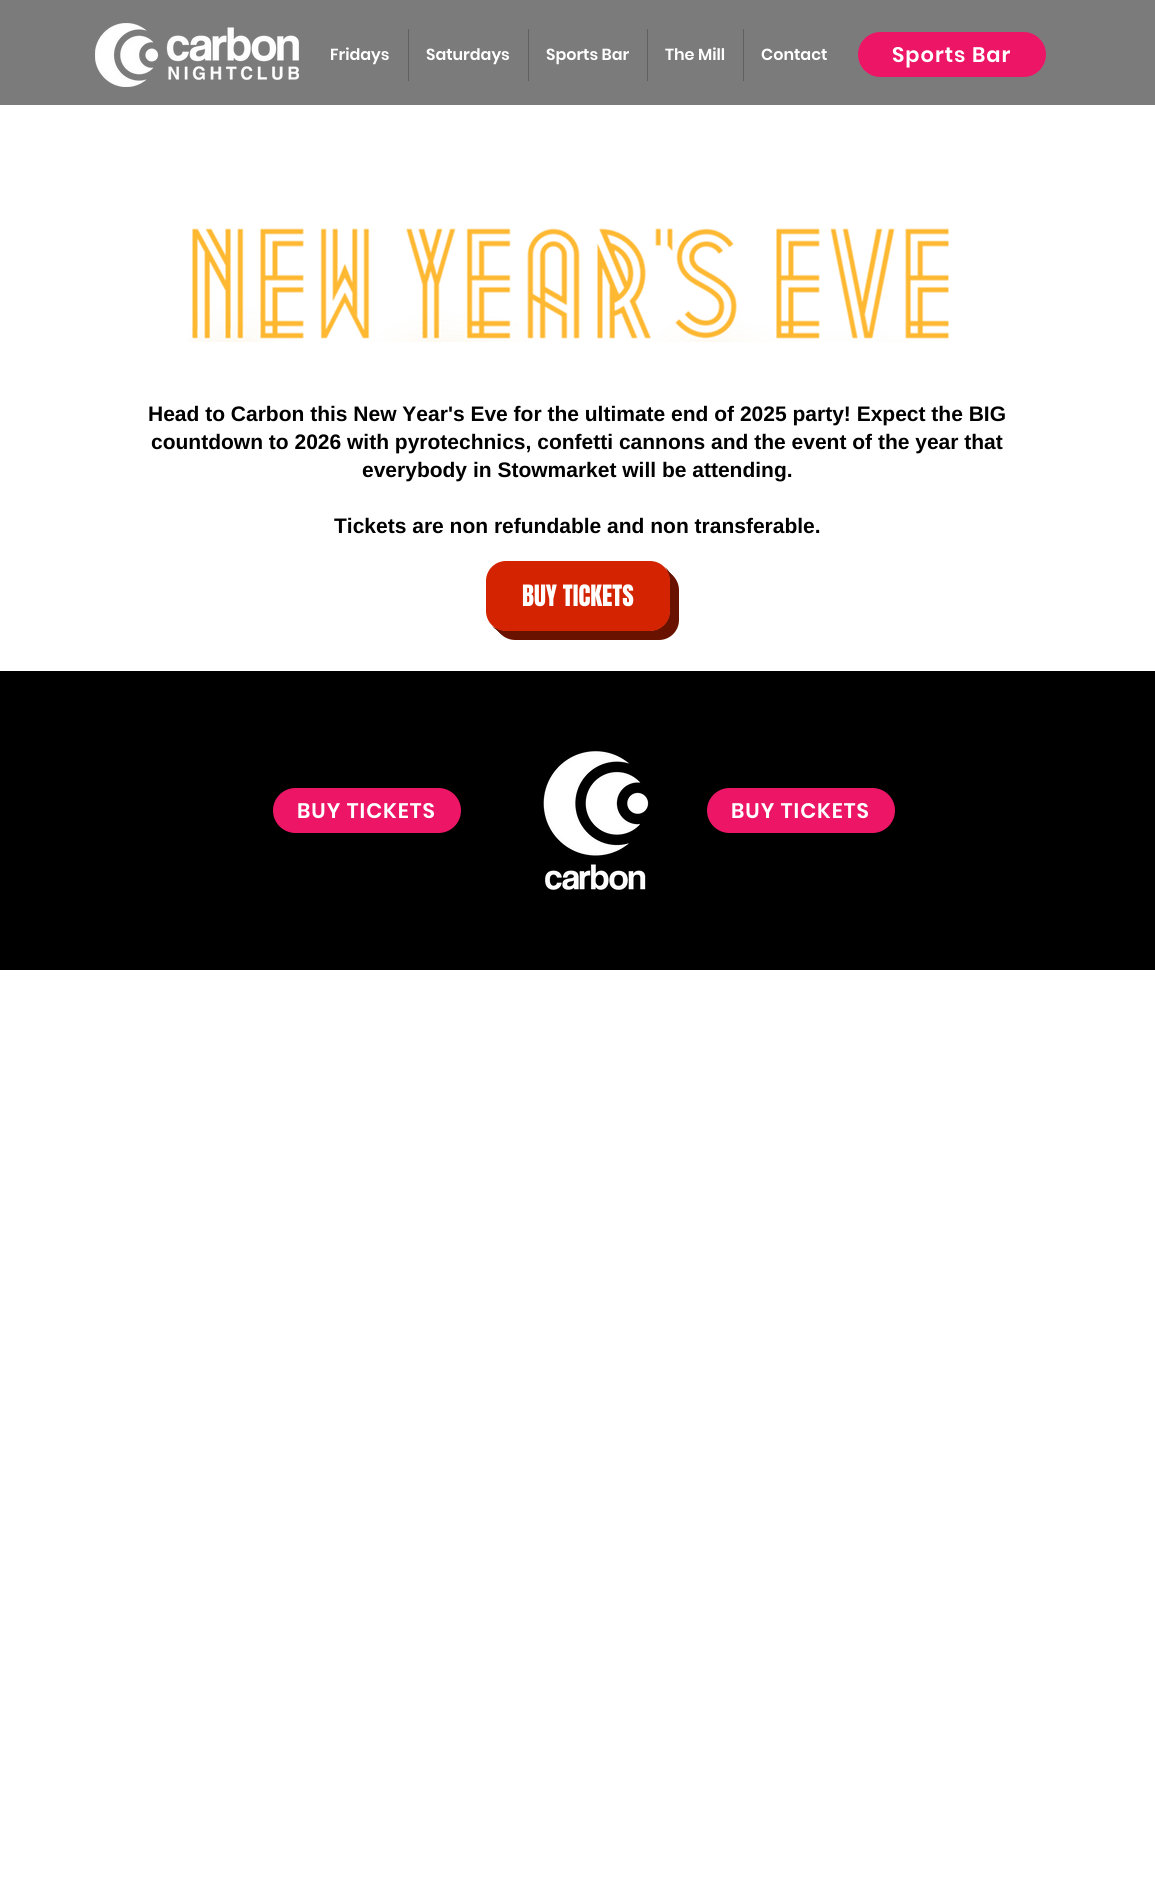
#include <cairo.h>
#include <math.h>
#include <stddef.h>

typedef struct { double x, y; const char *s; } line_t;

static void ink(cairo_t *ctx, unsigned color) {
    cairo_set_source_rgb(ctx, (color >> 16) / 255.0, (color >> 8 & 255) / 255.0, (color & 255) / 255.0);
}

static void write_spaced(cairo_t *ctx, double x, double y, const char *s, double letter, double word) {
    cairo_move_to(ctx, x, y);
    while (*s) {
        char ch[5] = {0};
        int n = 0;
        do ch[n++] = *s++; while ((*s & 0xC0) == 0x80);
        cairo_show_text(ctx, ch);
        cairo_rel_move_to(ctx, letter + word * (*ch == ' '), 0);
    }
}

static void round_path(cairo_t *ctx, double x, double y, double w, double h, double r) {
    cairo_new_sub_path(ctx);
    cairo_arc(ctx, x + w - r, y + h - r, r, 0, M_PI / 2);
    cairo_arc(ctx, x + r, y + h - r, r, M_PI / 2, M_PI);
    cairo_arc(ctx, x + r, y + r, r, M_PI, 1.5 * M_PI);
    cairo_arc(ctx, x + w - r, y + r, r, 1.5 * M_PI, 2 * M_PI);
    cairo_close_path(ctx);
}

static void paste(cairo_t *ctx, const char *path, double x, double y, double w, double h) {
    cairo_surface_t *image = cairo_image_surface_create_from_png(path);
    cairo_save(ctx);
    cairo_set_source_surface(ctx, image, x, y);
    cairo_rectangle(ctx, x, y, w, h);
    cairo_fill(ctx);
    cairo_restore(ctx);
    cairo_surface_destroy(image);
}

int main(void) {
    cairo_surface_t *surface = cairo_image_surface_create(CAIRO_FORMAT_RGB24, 1155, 1891);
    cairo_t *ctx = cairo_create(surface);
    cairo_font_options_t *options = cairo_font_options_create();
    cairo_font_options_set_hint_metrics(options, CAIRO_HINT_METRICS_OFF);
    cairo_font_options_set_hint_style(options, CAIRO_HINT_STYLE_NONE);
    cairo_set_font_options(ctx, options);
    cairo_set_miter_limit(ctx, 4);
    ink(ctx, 0xFFFFFF);
    cairo_paint(ctx);
    ink(ctx, 0x7B7B7B);
    cairo_rectangle(ctx, 0, 0, 1155, 105);
    cairo_fill(ctx);
    paste(ctx, "media/1.png", 95, 23, 204, 64);
    cairo_select_font_face(ctx, "Poppins SemiBold", CAIRO_FONT_SLANT_NORMAL, CAIRO_FONT_WEIGHT_NORMAL);
    cairo_set_font_size(ctx, 16);
    ink(ctx, 0xFFFFFF);
    cairo_move_to(ctx, 330, 60);
    cairo_show_text(ctx, "Fridays");
    ink(ctx, 0x606060);
    cairo_rectangle(ctx, 408, 29, 1, 52);
    cairo_fill(ctx);
    ink(ctx, 0xFFFFFF);
    cairo_move_to(ctx, 426, 60);
    cairo_show_text(ctx, "Saturdays");
    ink(ctx, 0x606060);
    cairo_rectangle(ctx, 528, 29, 1, 52);
    cairo_fill(ctx);
    ink(ctx, 0xFFFFFF);
    cairo_move_to(ctx, 546, 60);
    cairo_show_text(ctx, "Sports Bar");
    ink(ctx, 0x606060);
    cairo_rectangle(ctx, 647, 29, 1, 52);
    cairo_fill(ctx);
    ink(ctx, 0xFFFFFF);
    cairo_move_to(ctx, 665, 60);
    cairo_show_text(ctx, "The Mill");
    ink(ctx, 0x606060);
    cairo_rectangle(ctx, 743, 29, 1, 52);
    cairo_fill(ctx);
    ink(ctx, 0xFFFFFF);
    cairo_move_to(ctx, 761, 60);
    cairo_show_text(ctx, "Contact");
    ink(ctx, 0xED1566);
    round_path(ctx, 858, 32, 188, 45, 22.5);
    cairo_fill(ctx);
    cairo_set_font_size(ctx, 21);
    ink(ctx, 0xFFFFFF);
    write_spaced(ctx, 892, 62, "Sports Bar", 1, 0);
    paste(ctx, "media/2.png", 189, 228, 760, 114);
    cairo_select_font_face(ctx, "Liberation Sans", CAIRO_FONT_SLANT_NORMAL, CAIRO_FONT_WEIGHT_BOLD);
    ink(ctx, 0x000000);
    {
        static const line_t items[] = {
            {148, 421, "Head to Carbon this New Year's Eve for the ultimate end of 2025 party! Expect the BIG"},
            {151, 449, "countdown to 2026 with pyrotechnics, confetti cannons and the event of the year that"},
            {362, 477, "everybody in Stowmarket will be attending."},
            {334, 533, "Tickets are non refundable and non transferable."},
        };
        for (size_t i = 0; i < sizeof items / sizeof *items; i++) {
            cairo_move_to(ctx, items[i].x, items[i].y);
            cairo_show_text(ctx, items[i].s);
        }
    }
    ink(ctx, 0x6A1200);
    cairo_new_path(ctx);
    cairo_move_to(ctx, 497, 629);
    cairo_curve_to(ctx, 500, 635, 507, 640, 515, 640);
    cairo_line_to(ctx, 659, 640);
    cairo_curve_to(ctx, 670, 640, 679, 631, 679, 620);
    cairo_line_to(ctx, 679, 590);
    cairo_curve_to(ctx, 679, 582, 674, 575, 668, 572);
    cairo_curve_to(ctx, 669, 575, 670, 578, 670, 581);
    cairo_line_to(ctx, 670, 611);
    cairo_curve_to(ctx, 670, 622, 661, 631, 650, 631);
    cairo_line_to(ctx, 506, 631);
    cairo_curve_to(ctx, 503, 631, 500, 630, 497, 629);
    cairo_close_path(ctx);
    cairo_fill(ctx);
    cairo_new_path(ctx);
    cairo_move_to(ctx, 496, 628);
    cairo_curve_to(ctx, 499, 634, 506, 638, 513, 638);
    cairo_line_to(ctx, 657, 638);
    cairo_curve_to(ctx, 668, 638, 677, 629, 677, 618);
    cairo_line_to(ctx, 677, 588);
    cairo_curve_to(ctx, 677, 581, 673, 574, 667, 571);
    cairo_curve_to(ctx, 669, 574, 670, 577, 670, 581);
    cairo_line_to(ctx, 670, 611);
    cairo_curve_to(ctx, 670, 622, 661, 631, 650, 631);
    cairo_line_to(ctx, 506, 631);
    cairo_curve_to(ctx, 502, 631, 499, 630, 496, 628);
    cairo_close_path(ctx);
    cairo_fill(ctx);
    cairo_new_path(ctx);
    cairo_move_to(ctx, 495, 627);
    cairo_curve_to(ctx, 498, 633, 504, 636, 511, 636);
    cairo_line_to(ctx, 655, 636);
    cairo_curve_to(ctx, 666, 636, 675, 627, 675, 616);
    cairo_line_to(ctx, 675, 586);
    cairo_curve_to(ctx, 675, 579, 672, 573, 666, 570);
    cairo_curve_to(ctx, 669, 573, 670, 577, 670, 581);
    cairo_line_to(ctx, 670, 611);
    cairo_curve_to(ctx, 670, 622, 661, 631, 650, 631);
    cairo_line_to(ctx, 506, 631);
    cairo_curve_to(ctx, 502, 631, 498, 630, 495, 627);
    cairo_close_path(ctx);
    cairo_fill(ctx);
    cairo_new_path(ctx);
    cairo_move_to(ctx, 493, 627);
    cairo_curve_to(ctx, 497, 631, 503, 634, 509, 634);
    cairo_line_to(ctx, 653, 634);
    cairo_curve_to(ctx, 664, 634, 673, 625, 673, 614);
    cairo_line_to(ctx, 673, 584);
    cairo_curve_to(ctx, 673, 578, 670, 572, 666, 568);
    cairo_curve_to(ctx, 668, 572, 670, 576, 670, 581);
    cairo_line_to(ctx, 670, 611);
    cairo_curve_to(ctx, 670, 622, 661, 631, 650, 631);
    cairo_line_to(ctx, 506, 631);
    cairo_curve_to(ctx, 501, 631, 497, 629, 493, 627);
    cairo_close_path(ctx);
    cairo_fill(ctx);
    cairo_new_path(ctx);
    cairo_move_to(ctx, 492, 626);
    cairo_curve_to(ctx, 496, 630, 501, 632, 507, 632);
    cairo_line_to(ctx, 651, 632);
    cairo_curve_to(ctx, 662, 632, 671, 623, 671, 612);
    cairo_line_to(ctx, 671, 582);
    cairo_curve_to(ctx, 671, 576, 669, 571, 665, 567);
    cairo_curve_to(ctx, 668, 571, 670, 576, 670, 581);
    cairo_line_to(ctx, 670, 611);
    cairo_curve_to(ctx, 670, 622, 661, 631, 650, 631);
    cairo_line_to(ctx, 506, 631);
    cairo_curve_to(ctx, 501, 631, 496, 629, 492, 626);
    cairo_close_path(ctx);
    cairo_fill(ctx);
    ink(ctx, 0xD32300);
    round_path(ctx, 486, 561, 184, 70, 20);
    cairo_fill(ctx);
    cairo_select_font_face(ctx, "Anton", CAIRO_FONT_SLANT_NORMAL, CAIRO_FONT_WEIGHT_NORMAL);
    cairo_set_font_size(ctx, 25);
    ink(ctx, 0xFFFFFF);
    cairo_move_to(ctx, 522, 606);
    cairo_show_text(ctx, "BUY TICKETS");
    ink(ctx, 0x000000);
    cairo_rectangle(ctx, 0, 671, 1155, 299);
    cairo_fill(ctx);
    ink(ctx, 0xED1566);
    round_path(ctx, 273, 788, 188, 45, 22.5);
    cairo_fill(ctx);
    cairo_select_font_face(ctx, "Poppins SemiBold", CAIRO_FONT_SLANT_NORMAL, CAIRO_FONT_WEIGHT_NORMAL);
    cairo_set_font_size(ctx, 21);
    ink(ctx, 0xFFFFFF);
    write_spaced(ctx, 297, 818, "BUY TICKETS", 1, 0);
    paste(ctx, "media/3.png", 543, 751, 106, 139);
    ink(ctx, 0xED1566);
    round_path(ctx, 707, 788, 188, 45, 22.5);
    cairo_fill(ctx);
    ink(ctx, 0xFFFFFF);
    write_spaced(ctx, 731, 818, "BUY TICKETS", 1, 0);
    cairo_surface_write_to_png(surface, "image.png");
    cairo_font_options_destroy(options);
    cairo_destroy(ctx);
    cairo_surface_destroy(surface);
    return 0;
}
